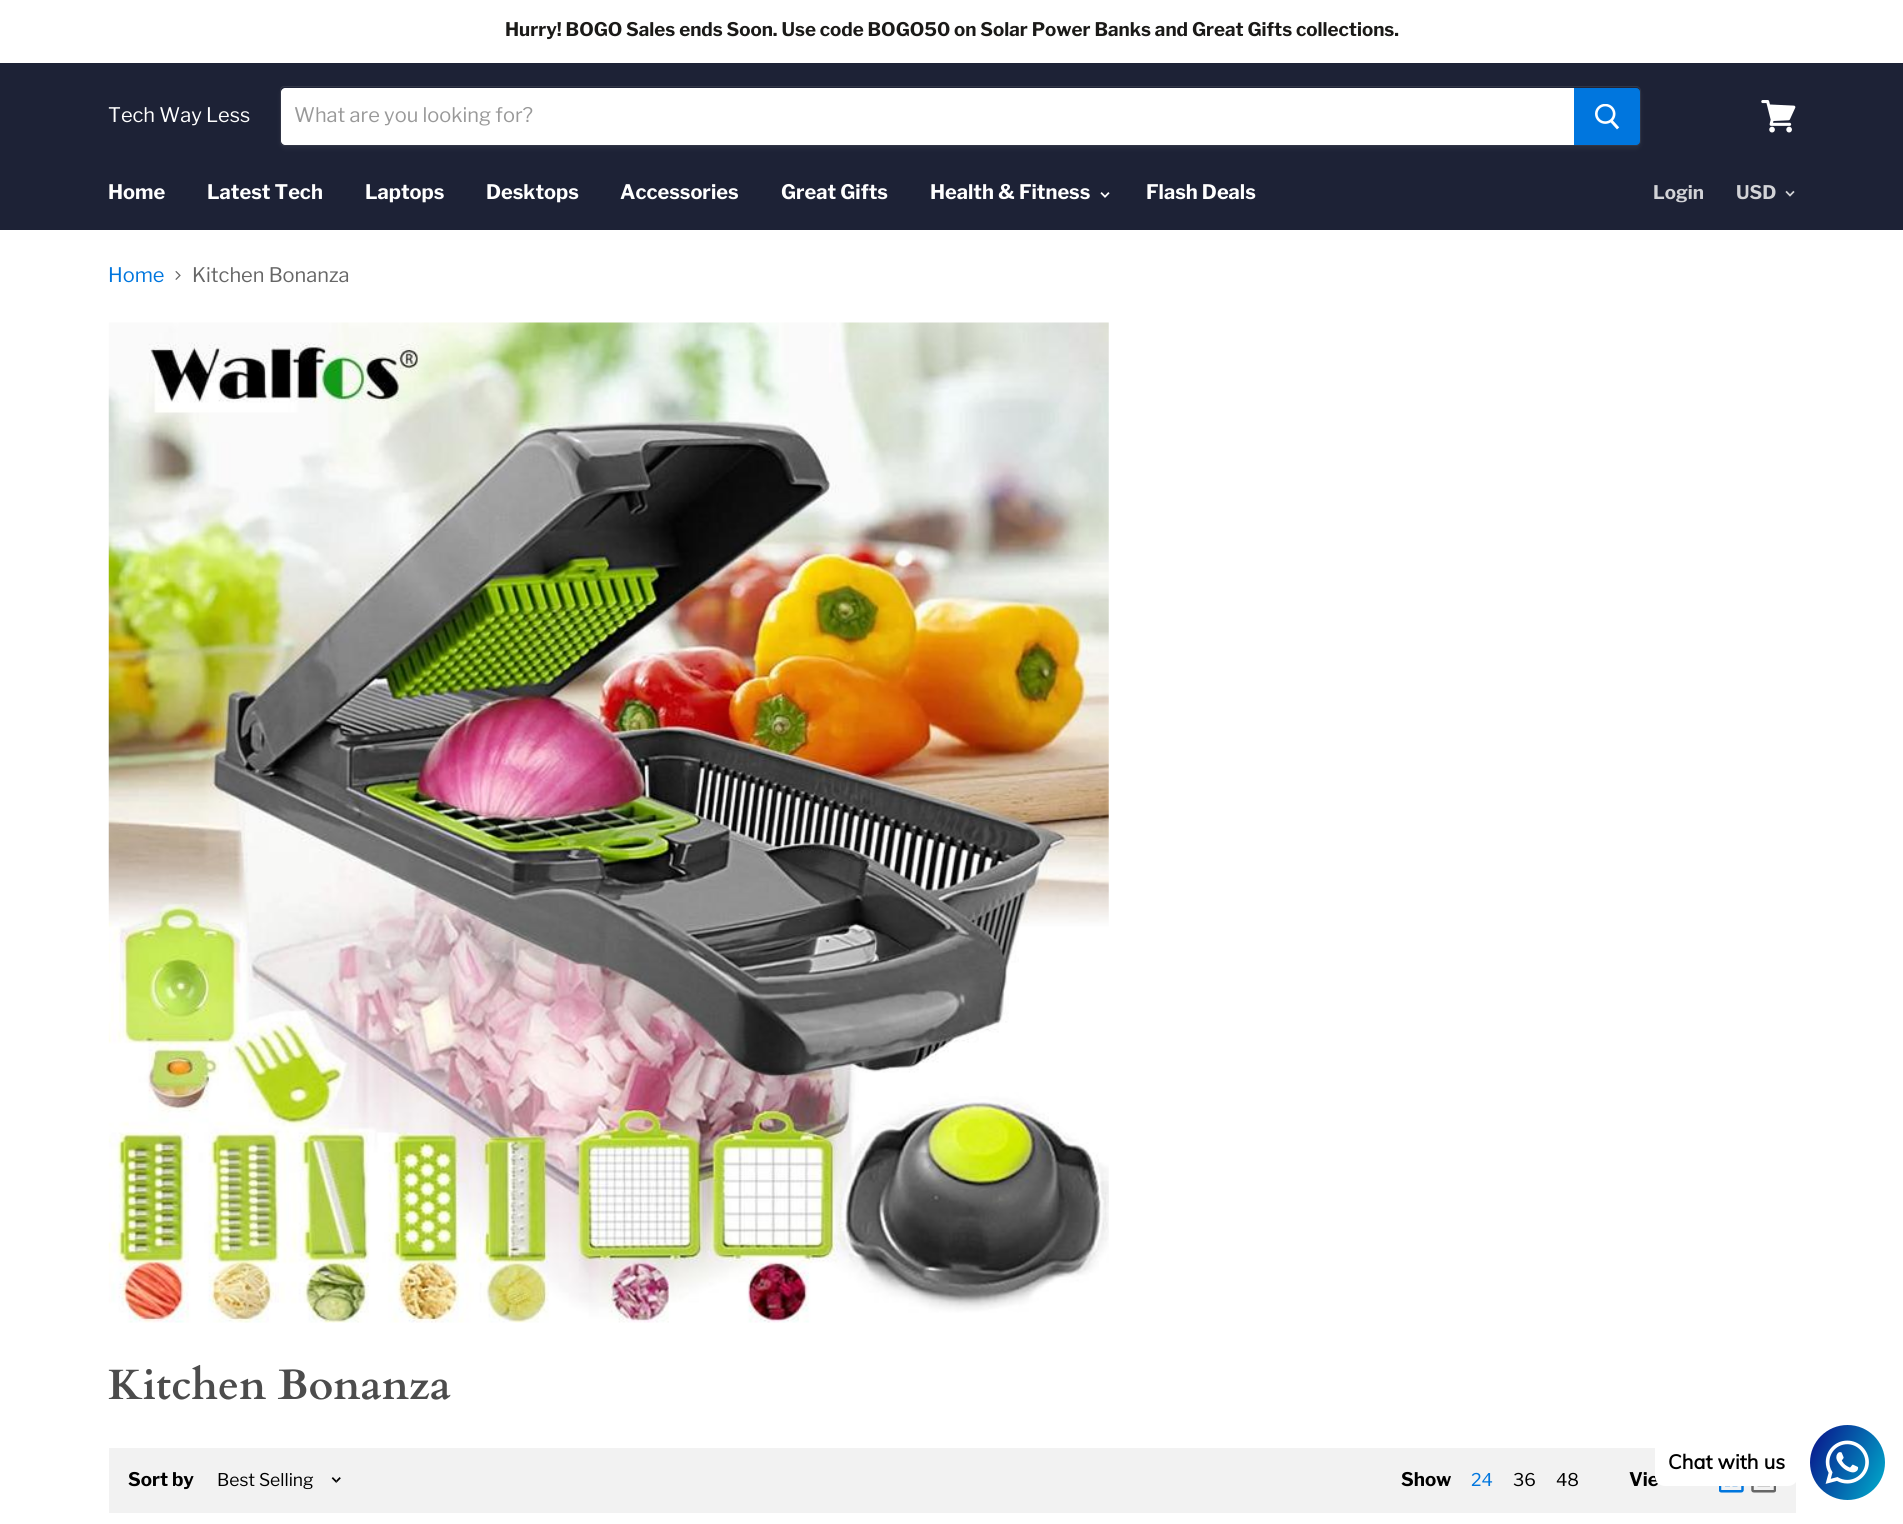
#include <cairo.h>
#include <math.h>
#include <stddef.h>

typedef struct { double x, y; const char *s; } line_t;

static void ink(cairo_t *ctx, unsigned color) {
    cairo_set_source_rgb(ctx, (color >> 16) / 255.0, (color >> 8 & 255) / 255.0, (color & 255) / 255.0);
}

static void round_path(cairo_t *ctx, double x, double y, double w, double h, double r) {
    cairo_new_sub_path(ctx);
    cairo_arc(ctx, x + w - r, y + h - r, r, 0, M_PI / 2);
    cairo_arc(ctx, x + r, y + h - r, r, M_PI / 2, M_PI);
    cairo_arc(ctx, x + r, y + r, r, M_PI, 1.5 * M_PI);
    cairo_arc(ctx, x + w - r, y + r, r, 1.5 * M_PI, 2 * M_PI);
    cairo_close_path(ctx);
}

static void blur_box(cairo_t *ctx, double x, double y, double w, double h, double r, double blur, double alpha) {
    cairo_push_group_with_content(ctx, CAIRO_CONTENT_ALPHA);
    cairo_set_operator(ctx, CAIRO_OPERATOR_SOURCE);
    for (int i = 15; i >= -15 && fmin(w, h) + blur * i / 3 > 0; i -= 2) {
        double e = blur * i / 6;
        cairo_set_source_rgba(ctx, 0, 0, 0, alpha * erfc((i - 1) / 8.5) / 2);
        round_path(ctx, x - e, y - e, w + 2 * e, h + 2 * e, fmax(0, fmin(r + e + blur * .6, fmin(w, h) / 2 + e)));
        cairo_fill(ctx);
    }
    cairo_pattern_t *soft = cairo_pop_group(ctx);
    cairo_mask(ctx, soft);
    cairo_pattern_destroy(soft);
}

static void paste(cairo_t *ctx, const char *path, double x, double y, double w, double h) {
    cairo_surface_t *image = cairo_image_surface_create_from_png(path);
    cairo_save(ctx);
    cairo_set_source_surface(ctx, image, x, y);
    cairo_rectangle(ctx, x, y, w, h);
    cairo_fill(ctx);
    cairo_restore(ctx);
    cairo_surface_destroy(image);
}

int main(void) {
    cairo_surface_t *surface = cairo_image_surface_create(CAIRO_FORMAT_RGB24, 1903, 1524);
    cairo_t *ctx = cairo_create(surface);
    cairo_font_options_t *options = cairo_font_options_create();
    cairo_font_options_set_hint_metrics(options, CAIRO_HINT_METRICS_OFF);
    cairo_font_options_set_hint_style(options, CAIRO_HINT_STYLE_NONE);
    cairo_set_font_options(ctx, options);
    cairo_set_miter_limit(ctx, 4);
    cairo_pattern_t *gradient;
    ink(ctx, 0xFFFFFF);
    cairo_paint(ctx);
    ink(ctx, 0x1D2236);
    cairo_rectangle(ctx, 0, 63, 1903, 167);
    cairo_fill(ctx);
    cairo_select_font_face(ctx, "Libre Franklin", CAIRO_FONT_SLANT_NORMAL, CAIRO_FONT_WEIGHT_BOLD);
    cairo_set_font_size(ctx, 18.75);
    ink(ctx, 0x1B1A18);
    cairo_move_to(ctx, 505, 36);
    cairo_show_text(ctx, "Hurry! BOGO Sales ends Soon. Use code BOGO50 on Solar Power Banks and Great Gifts collections.");
    cairo_select_font_face(ctx, "Libre Franklin", CAIRO_FONT_SLANT_NORMAL, CAIRO_FONT_WEIGHT_NORMAL);
    cairo_set_font_size(ctx, 20);
    ink(ctx, 0xFFFFFF);
    cairo_move_to(ctx, 108, 122);
    cairo_show_text(ctx, "Tech Way Less");
    ink(ctx, 0x7F7F7F);
    blur_box(ctx, 280, 89, 1361, 60, 5, 2, 0.11);
    cairo_new_path(ctx);
    cairo_move_to(ctx, 284, 86.5);
    cairo_line_to(ctx, 1636, 86.5);
    cairo_curve_to(ctx, 1638.5, 86.5, 1640.5, 88.5, 1640.5, 91);
    cairo_line_to(ctx, 1640.5, 141);
    cairo_curve_to(ctx, 1640.5, 143.5, 1638.5, 145.5, 1636, 145.5);
    cairo_line_to(ctx, 284, 145.5);
    cairo_curve_to(ctx, 282, 145.5, 280.5, 144, 280.5, 142);
    cairo_line_to(ctx, 280.5, 90);
    cairo_curve_to(ctx, 280.5, 88, 282, 86.5, 284, 86.5);
    cairo_close_path(ctx);
    ink(ctx, 0x313545);
    cairo_set_line_width(ctx, 1);
    cairo_stroke(ctx);
    ink(ctx, 0xFFFFFF);
    cairo_new_path(ctx);
    cairo_move_to(ctx, 285, 88);
    cairo_line_to(ctx, 1574, 88);
    cairo_line_to(ctx, 1574, 145);
    cairo_line_to(ctx, 285, 145);
    cairo_curve_to(ctx, 283, 145, 281, 143, 281, 141);
    cairo_line_to(ctx, 281, 92);
    cairo_curve_to(ctx, 281, 90, 283, 88, 285, 88);
    cairo_close_path(ctx);
    cairo_fill(ctx);
    ink(ctx, 0x999999);
    cairo_move_to(ctx, 294, 122);
    cairo_show_text(ctx, "What are you looking for?");
    ink(ctx, 0x0076DE);
    cairo_new_path(ctx);
    cairo_move_to(ctx, 1574.5, 88.5);
    cairo_line_to(ctx, 1636, 88.5);
    cairo_curve_to(ctx, 1638, 88.5, 1639.5, 90, 1639.5, 92);
    cairo_line_to(ctx, 1639.5, 141);
    cairo_curve_to(ctx, 1639.5, 143, 1638, 144.5, 1636, 144.5);
    cairo_line_to(ctx, 1574.5, 144.5);
    cairo_close_path(ctx);
    cairo_fill_preserve(ctx);
    cairo_stroke(ctx);
    paste(ctx, "media/1.png", 1595, 104, 25, 26);
    paste(ctx, "media/2.png", 1761, 100, 35, 33);
    cairo_select_font_face(ctx, "Libre Franklin", CAIRO_FONT_SLANT_NORMAL, CAIRO_FONT_WEIGHT_BOLD);
    ink(ctx, 0xFFFFFF);
    {
        static const line_t items[] = {
            {108, 199, "Home"},
            {207, 199, "Latest Tech"},
            {365, 199, "Laptops"},
            {486, 199, "Desktops"},
            {620, 199, "Accessories"},
            {781, 199, "Great Gifts"},
            {930, 199, "Health & Fitness"},
        };
        for (size_t i = 0; i < sizeof items / sizeof *items; i++) {
            cairo_move_to(ctx, items[i].x, items[i].y);
            cairo_show_text(ctx, items[i].s);
        }
    }
    paste(ctx, "media/3.png", 1100, 192, 10, 6);
    cairo_move_to(ctx, 1146, 199);
    cairo_show_text(ctx, "Flash Deals");
    cairo_set_font_size(ctx, 18.75);
    ink(ctx, 0xD2D3D7);
    cairo_move_to(ctx, 1653, 199);
    cairo_show_text(ctx, "Login");
    cairo_move_to(ctx, 1736, 199);
    cairo_show_text(ctx, "USD");
    paste(ctx, "media/4.png", 1785, 190, 10, 7);
    cairo_select_font_face(ctx, "Libre Franklin", CAIRO_FONT_SLANT_NORMAL, CAIRO_FONT_WEIGHT_NORMAL);
    cairo_set_font_size(ctx, 20);
    ink(ctx, 0x0076DE);
    cairo_move_to(ctx, 108, 282);
    cairo_show_text(ctx, "Home");
    paste(ctx, "media/5.png", 175, 271, 6, 9);
    ink(ctx, 0x666666);
    cairo_move_to(ctx, 192, 282);
    cairo_show_text(ctx, "Kitchen Bonanza");
    paste(ctx, "media/6.png", 108, 322, 1001, 1001);
    cairo_select_font_face(ctx, "Cardo", CAIRO_FONT_SLANT_NORMAL, CAIRO_FONT_WEIGHT_BOLD);
    cairo_set_font_size(ctx, 42.5);
    ink(ctx, 0x4C4C4C);
    cairo_move_to(ctx, 108, 1399);
    cairo_show_text(ctx, "Kitchen Bonanza");
    ink(ctx, 0xF2F2F2);
    cairo_rectangle(ctx, 109, 1448, 1687, 65);
    cairo_fill(ctx);
    cairo_select_font_face(ctx, "Libre Franklin", CAIRO_FONT_SLANT_NORMAL, CAIRO_FONT_WEIGHT_BOLD);
    cairo_set_font_size(ctx, 18.75);
    ink(ctx, 0x000000);
    cairo_move_to(ctx, 128, 1486);
    cairo_show_text(ctx, "Sort by");
    cairo_select_font_face(ctx, "Libre Franklin", CAIRO_FONT_SLANT_NORMAL, CAIRO_FONT_WEIGHT_NORMAL);
    cairo_set_font_size(ctx, 17.5);
    cairo_move_to(ctx, 217, 1486);
    cairo_show_text(ctx, "Best Selling");
    paste(ctx, "media/7.png", 331, 1477, 10, 6);
    cairo_select_font_face(ctx, "Libre Franklin", CAIRO_FONT_SLANT_NORMAL, CAIRO_FONT_WEIGHT_BOLD);
    cairo_set_font_size(ctx, 18.75);
    cairo_move_to(ctx, 1401, 1486);
    cairo_show_text(ctx, "Show");
    cairo_select_font_face(ctx, "Libre Franklin", CAIRO_FONT_SLANT_NORMAL, CAIRO_FONT_WEIGHT_NORMAL);
    cairo_set_font_size(ctx, 17.5);
    ink(ctx, 0x0076DE);
    cairo_move_to(ctx, 1471, 1486);
    cairo_show_text(ctx, "24");
    ink(ctx, 0x000000);
    cairo_move_to(ctx, 1513, 1486);
    cairo_show_text(ctx, "36");
    cairo_move_to(ctx, 1556, 1486);
    cairo_show_text(ctx, "48");
    cairo_select_font_face(ctx, "Libre Franklin", CAIRO_FONT_SLANT_NORMAL, CAIRO_FONT_WEIGHT_BOLD);
    cairo_set_font_size(ctx, 18.75);
    cairo_move_to(ctx, 1629, 1486);
    cairo_show_text(ctx, "Vie");
    paste(ctx, "media/8.png", 1719, 1486, 25, 7);
    paste(ctx, "media/9.png", 1751, 1486, 25, 7);
    gradient = cairo_pattern_create_linear(1802, 1441, 1893, 1484);
    cairo_pattern_add_color_stop_rgba(gradient, 0, 0.039, 0.055, 0.533, 1);
    cairo_pattern_add_color_stop_rgba(gradient, 1, 0, 0.694, 0.808, 1);
    cairo_set_source(ctx, gradient);
    cairo_pattern_destroy(gradient);
    cairo_arc(ctx, 1847.5, 1462.5, 37.5, 0, 2 * M_PI);
    cairo_fill(ctx);
    ink(ctx, 0xFFFFFF);
    round_path(ctx, 1655, 1438, 143, 48, 10);
    cairo_fill(ctx);
    cairo_select_font_face(ctx, "Muli", CAIRO_FONT_SLANT_NORMAL, CAIRO_FONT_WEIGHT_BOLD);
    cairo_set_font_size(ctx, 20);
    ink(ctx, 0x000000);
    cairo_move_to(ctx, 1668, 1469);
    cairo_show_text(ctx, "Chat with us");
    paste(ctx, "media/10.png", 1825, 1440, 44, 44);
    cairo_surface_write_to_png(surface, "image.png");
    cairo_font_options_destroy(options);
    cairo_destroy(ctx);
    cairo_surface_destroy(surface);
    return 0;
}
